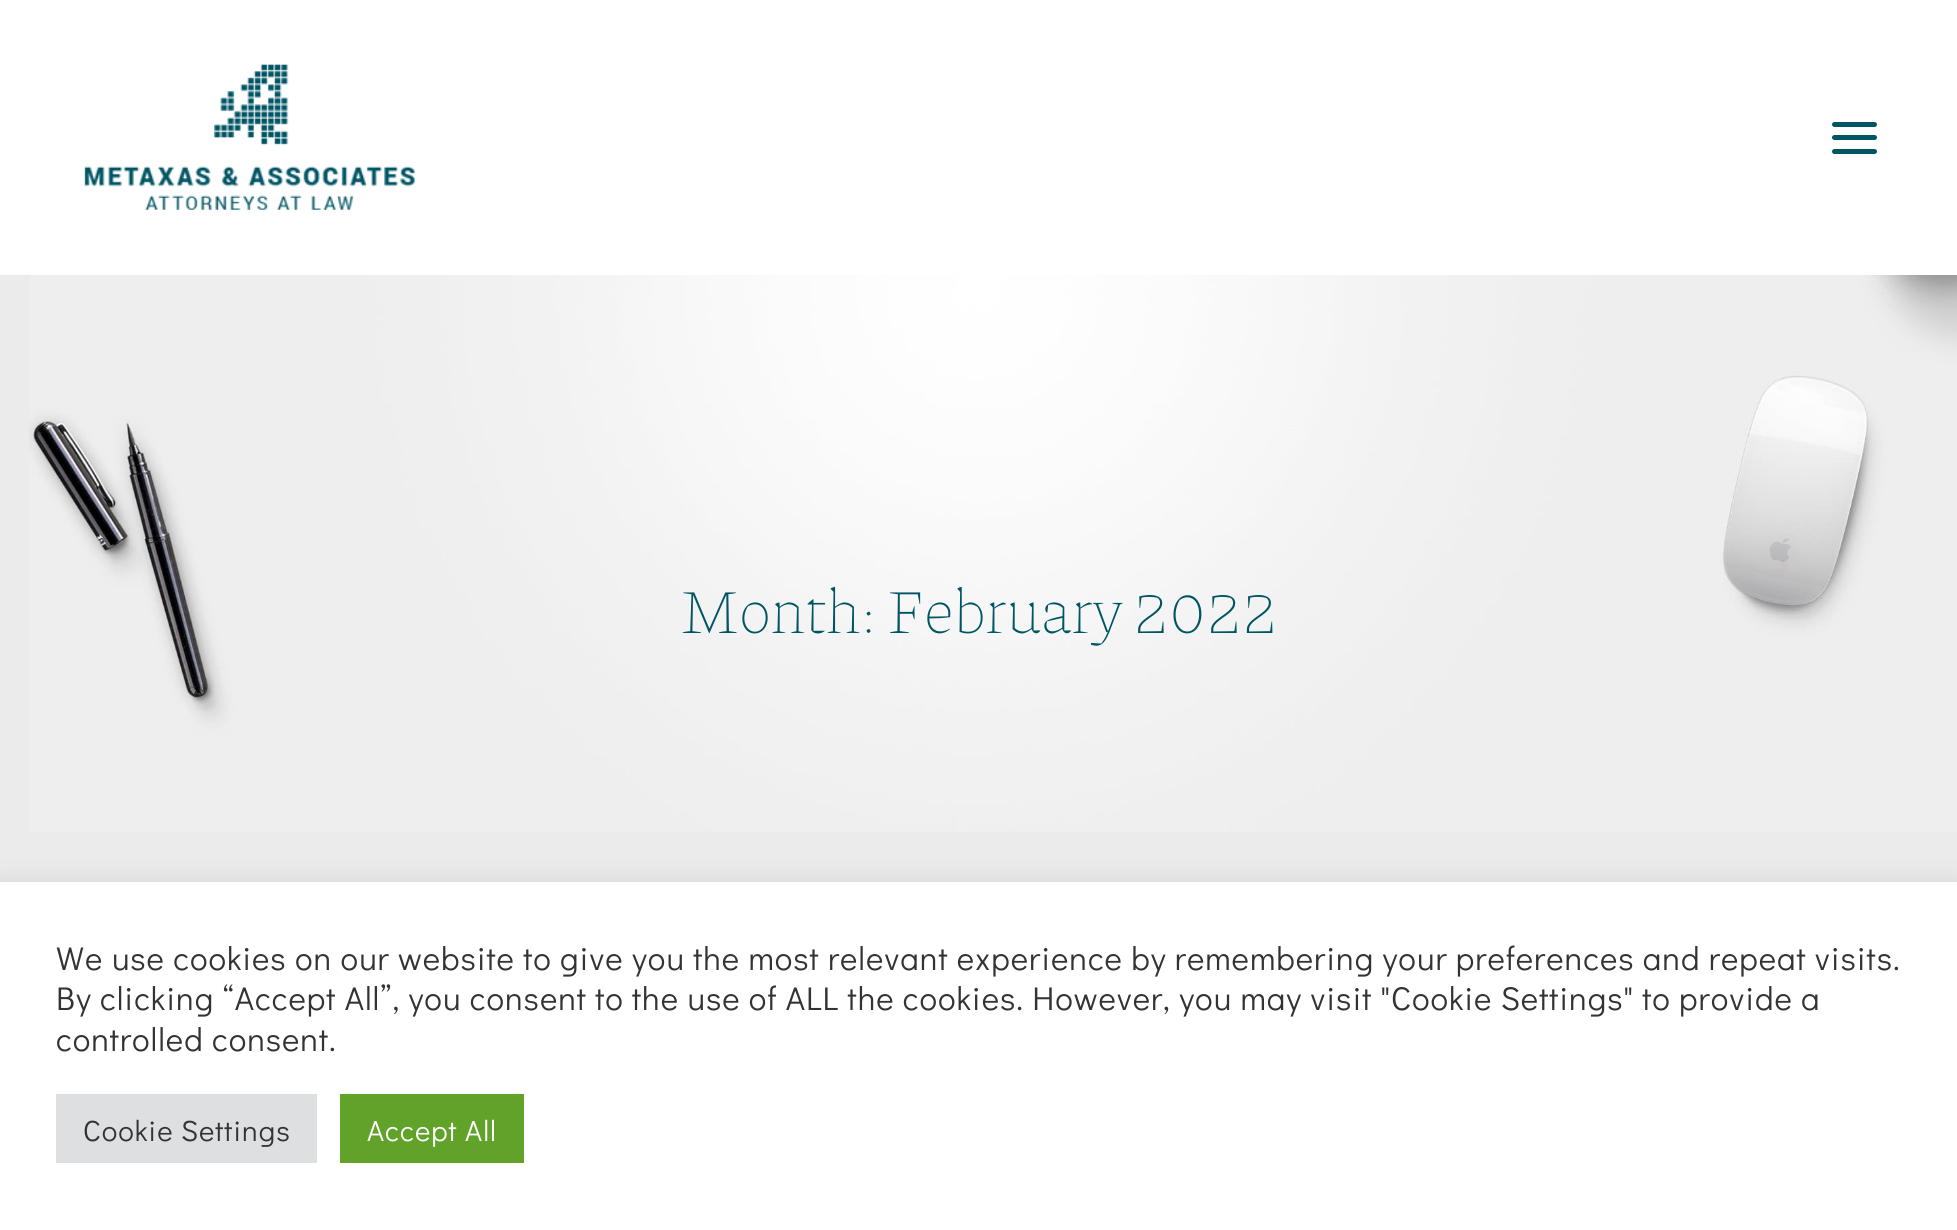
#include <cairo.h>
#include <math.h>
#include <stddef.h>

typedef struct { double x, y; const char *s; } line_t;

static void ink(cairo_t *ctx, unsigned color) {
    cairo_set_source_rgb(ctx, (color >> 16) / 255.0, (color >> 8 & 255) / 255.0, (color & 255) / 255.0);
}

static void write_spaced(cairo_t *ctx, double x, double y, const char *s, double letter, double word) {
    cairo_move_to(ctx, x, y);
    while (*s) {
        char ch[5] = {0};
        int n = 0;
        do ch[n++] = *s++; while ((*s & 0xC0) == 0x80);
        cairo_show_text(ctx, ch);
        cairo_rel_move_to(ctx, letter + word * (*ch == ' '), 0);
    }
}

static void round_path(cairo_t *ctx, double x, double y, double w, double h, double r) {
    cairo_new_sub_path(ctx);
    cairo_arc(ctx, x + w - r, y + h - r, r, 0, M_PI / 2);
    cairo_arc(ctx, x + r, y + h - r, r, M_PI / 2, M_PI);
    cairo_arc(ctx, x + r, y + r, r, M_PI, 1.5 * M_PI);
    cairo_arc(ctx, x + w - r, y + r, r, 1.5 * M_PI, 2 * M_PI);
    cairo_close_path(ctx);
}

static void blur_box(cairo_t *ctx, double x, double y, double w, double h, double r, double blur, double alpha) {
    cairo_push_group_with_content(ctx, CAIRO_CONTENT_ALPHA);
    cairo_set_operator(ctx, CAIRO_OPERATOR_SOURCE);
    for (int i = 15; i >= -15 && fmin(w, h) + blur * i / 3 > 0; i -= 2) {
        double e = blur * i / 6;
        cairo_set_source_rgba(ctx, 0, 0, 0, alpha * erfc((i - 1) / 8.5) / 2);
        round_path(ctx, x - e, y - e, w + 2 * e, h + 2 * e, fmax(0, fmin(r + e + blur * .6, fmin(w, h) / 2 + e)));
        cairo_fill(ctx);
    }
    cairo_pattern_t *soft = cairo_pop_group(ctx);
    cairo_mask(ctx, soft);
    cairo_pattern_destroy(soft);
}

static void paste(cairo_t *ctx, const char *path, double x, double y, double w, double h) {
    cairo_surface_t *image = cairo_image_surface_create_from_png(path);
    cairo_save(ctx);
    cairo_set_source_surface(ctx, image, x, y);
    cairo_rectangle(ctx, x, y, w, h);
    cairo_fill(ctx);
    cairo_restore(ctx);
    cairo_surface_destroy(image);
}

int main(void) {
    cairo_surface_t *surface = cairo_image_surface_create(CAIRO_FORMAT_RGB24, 1957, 1230);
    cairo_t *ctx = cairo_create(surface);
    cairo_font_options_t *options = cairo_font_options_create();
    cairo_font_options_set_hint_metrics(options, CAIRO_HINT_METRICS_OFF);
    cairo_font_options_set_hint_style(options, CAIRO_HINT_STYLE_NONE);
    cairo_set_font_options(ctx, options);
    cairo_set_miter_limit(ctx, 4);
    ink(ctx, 0xEBEBEB);
    cairo_paint(ctx);
    ink(ctx, 0xFFFFFF);
    cairo_rectangle(ctx, 0, 0, 1957, 275);
    cairo_fill(ctx);
    paste(ctx, "media/1.png", 84, 64, 331, 146);
    ink(ctx, 0x005564);
    round_path(ctx, 1832, 135, 45, 5, 2.5);
    cairo_fill(ctx);
    round_path(ctx, 1832, 122, 45, 5, 2.5);
    cairo_fill(ctx);
    round_path(ctx, 1832, 149, 45, 5, 2.5);
    cairo_fill(ctx);
    paste(ctx, "media/2.png", 29, 275, 1928, 557);
    cairo_select_font_face(ctx, "Piazzolla Thin", CAIRO_FONT_SLANT_NORMAL, CAIRO_FONT_WEIGHT_NORMAL);
    cairo_set_font_size(ctx, 63);
    cairo_move_to(ctx, 680, 633);
    cairo_show_text(ctx, "Month: February 2022");
    ink(ctx, 0xACABAB);
    blur_box(ctx, 0, 880, 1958, 349, 0, 11, 0.3);
    ink(ctx, 0xFFFFFF);
    cairo_rectangle(ctx, 0, 882, 1957, 348);
    cairo_fill(ctx);
    cairo_select_font_face(ctx, "Didact Gothic", CAIRO_FONT_SLANT_NORMAL, CAIRO_FONT_WEIGHT_NORMAL);
    cairo_set_font_size(ctx, 33);
    ink(ctx, 0x333333);
    {
        static const line_t items[] = {
            {56, 970, "We use cookies on our website to give you the most relevant experience by remembering your preferences and repeat visits."},
            {56, 1010, "By clicking “Accept All”, you consent to the use of ALL the cookies. However, you may visit \"Cookie Settings\" to provide a"},
            {56, 1051, "controlled consent."},
        };
        for (size_t i = 0; i < sizeof items / sizeof *items; i++) {
            write_spaced(ctx, items[i].x, items[i].y, items[i].s, 0.96, 0);
        }
    }
    ink(ctx, 0xDEDFE0);
    cairo_rectangle(ctx, 56, 1094, 261, 69);
    cairo_fill(ctx);
    cairo_set_font_size(ctx, 29.25);
    ink(ctx, 0x333333);
    write_spaced(ctx, 83, 1141, "Cookie Settings", 0.96, 0);
    ink(ctx, 0x61A229);
    cairo_rectangle(ctx, 340, 1094, 184, 69);
    cairo_fill(ctx);
    ink(ctx, 0xFFFFFF);
    write_spaced(ctx, 367, 1141, "Accept All", 0.96, 0);
    cairo_surface_write_to_png(surface, "image.png");
    cairo_font_options_destroy(options);
    cairo_destroy(ctx);
    cairo_surface_destroy(surface);
    return 0;
}
